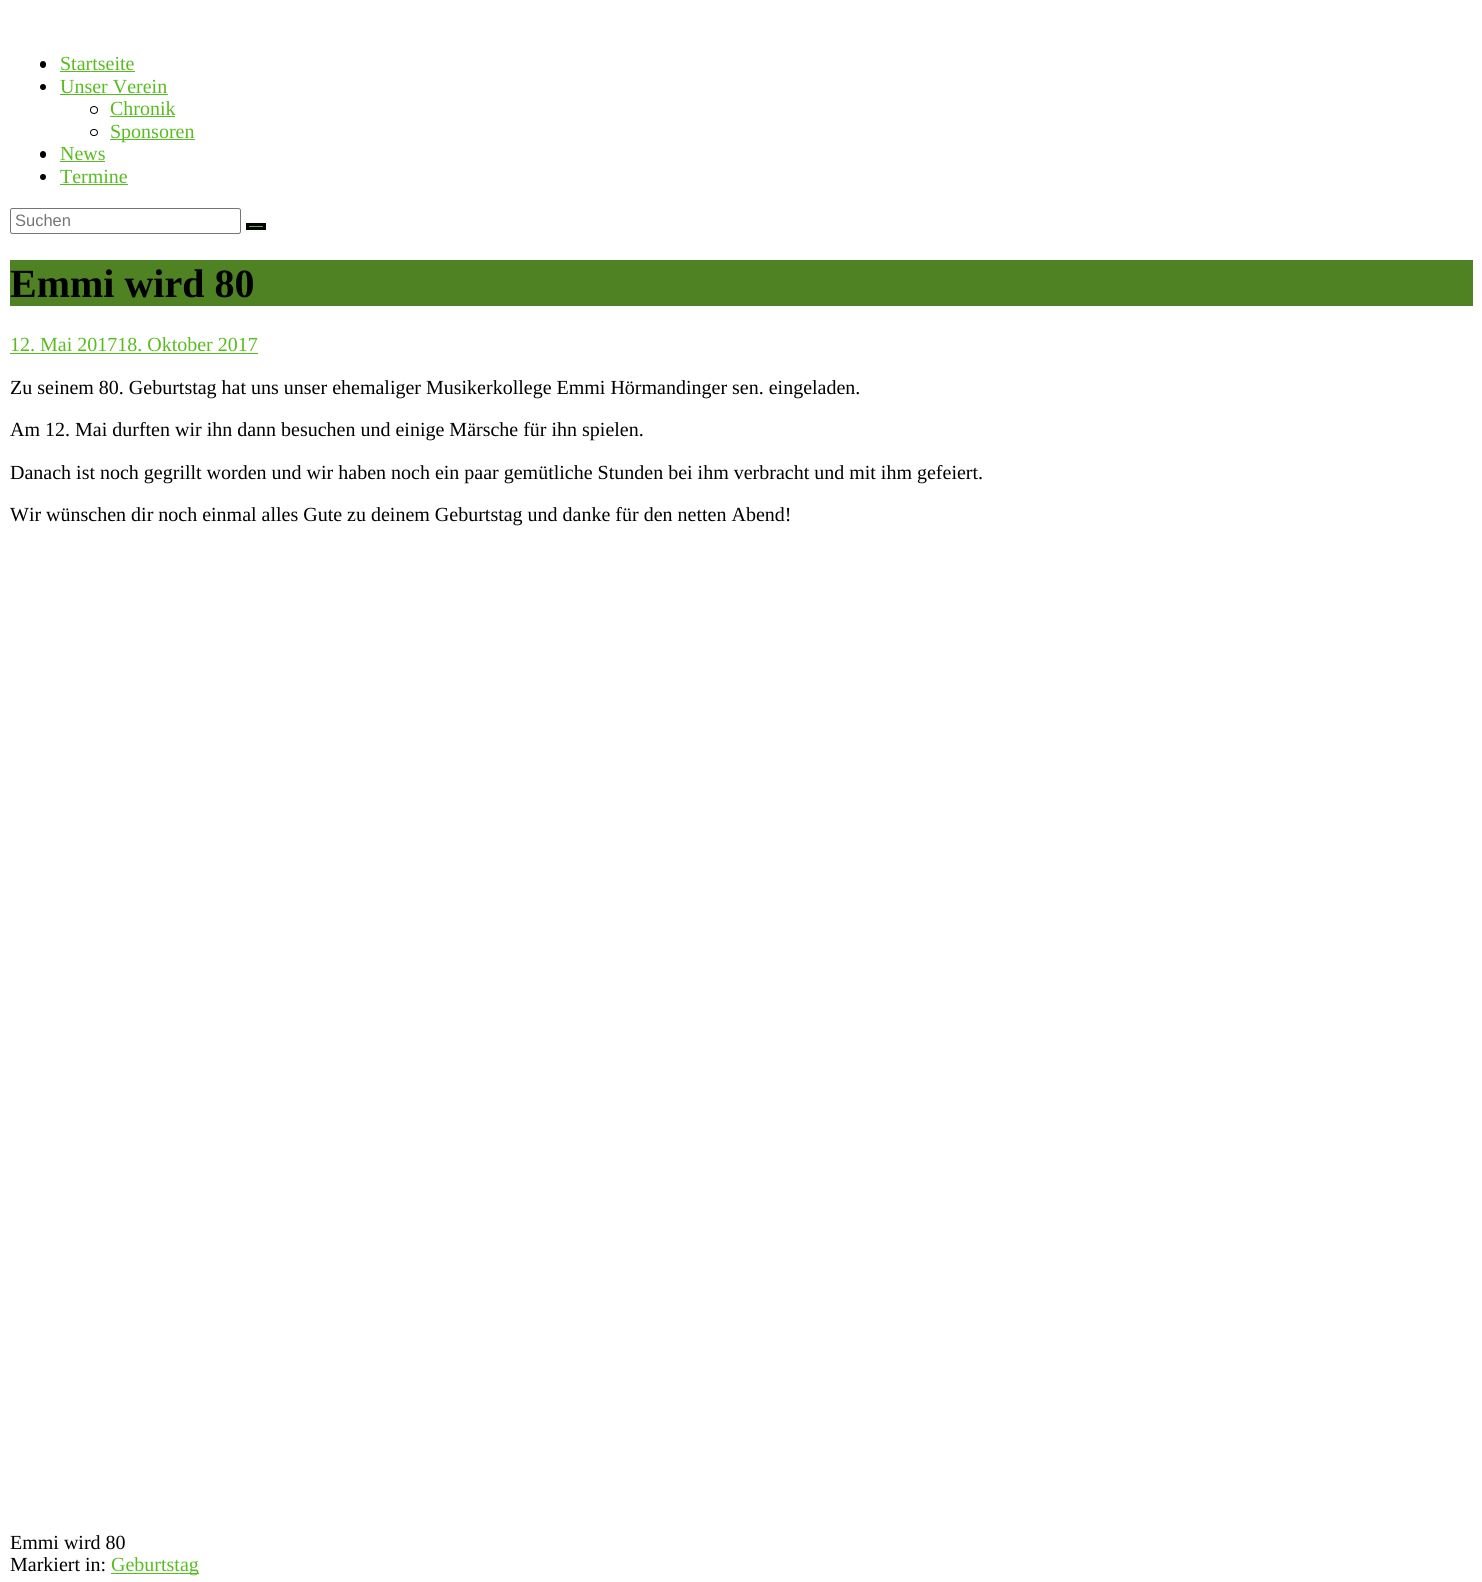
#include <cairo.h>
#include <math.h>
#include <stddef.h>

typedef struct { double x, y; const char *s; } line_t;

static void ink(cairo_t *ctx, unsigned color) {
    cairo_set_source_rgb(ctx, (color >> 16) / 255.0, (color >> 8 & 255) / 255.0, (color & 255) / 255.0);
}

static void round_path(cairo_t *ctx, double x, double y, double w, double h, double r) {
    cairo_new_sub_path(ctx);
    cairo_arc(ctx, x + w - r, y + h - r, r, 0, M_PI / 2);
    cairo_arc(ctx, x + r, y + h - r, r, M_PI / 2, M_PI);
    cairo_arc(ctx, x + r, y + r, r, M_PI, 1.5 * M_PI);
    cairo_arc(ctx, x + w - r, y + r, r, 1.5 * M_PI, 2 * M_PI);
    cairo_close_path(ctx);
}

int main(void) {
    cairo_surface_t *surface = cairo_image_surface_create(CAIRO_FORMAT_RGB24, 1482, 1582);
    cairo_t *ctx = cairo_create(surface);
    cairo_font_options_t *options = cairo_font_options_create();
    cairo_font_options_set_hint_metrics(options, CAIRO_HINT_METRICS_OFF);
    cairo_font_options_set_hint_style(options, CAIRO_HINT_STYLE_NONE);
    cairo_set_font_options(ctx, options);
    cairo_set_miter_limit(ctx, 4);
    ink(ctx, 0xFFFFFF);
    cairo_paint(ctx);
    ink(ctx, 0x000000);
    round_path(ctx, 40, 61, 6, 7, 3);
    cairo_fill(ctx);
    cairo_select_font_face(ctx, "Liberation Serif", CAIRO_FONT_SLANT_NORMAL, CAIRO_FONT_WEIGHT_NORMAL);
    cairo_set_font_size(ctx, 20);
    ink(ctx, 0x58BC21);
    cairo_move_to(ctx, 60, 70);
    cairo_show_text(ctx, "Startseite");
    cairo_rectangle(ctx, 60, 71, 75, 1);
    cairo_fill(ctx);
    ink(ctx, 0x000000);
    cairo_arc(ctx, 43, 87, 3, 0, 2 * M_PI);
    cairo_fill(ctx);
    ink(ctx, 0x58BC21);
    cairo_move_to(ctx, 60, 93);
    cairo_show_text(ctx, "Unser Verein");
    cairo_rectangle(ctx, 60, 94, 108, 1);
    cairo_fill(ctx);
    cairo_arc(ctx, 94, 110, 3.5, 0, 2 * M_PI);
    ink(ctx, 0x000000);
    cairo_set_line_width(ctx, 1);
    cairo_stroke(ctx);
    ink(ctx, 0x58BC21);
    cairo_move_to(ctx, 110, 115);
    cairo_show_text(ctx, "Chronik");
    cairo_rectangle(ctx, 110, 116, 65, 1);
    cairo_fill(ctx);
    round_path(ctx, 90.5, 129.5, 7, 6, 3);
    ink(ctx, 0x000000);
    cairo_stroke(ctx);
    ink(ctx, 0x58BC21);
    cairo_rectangle(ctx, 110, 139, 85, 1);
    cairo_fill(ctx);
    cairo_move_to(ctx, 110, 138);
    cairo_show_text(ctx, "Sponsoren");
    ink(ctx, 0x000000);
    round_path(ctx, 40, 151, 6, 7, 3);
    cairo_fill(ctx);
    ink(ctx, 0x58BC21);
    cairo_move_to(ctx, 60, 160);
    cairo_show_text(ctx, "News");
    cairo_rectangle(ctx, 60, 161, 45, 1);
    cairo_fill(ctx);
    ink(ctx, 0x000000);
    cairo_arc(ctx, 43, 177, 3, 0, 2 * M_PI);
    cairo_fill(ctx);
    ink(ctx, 0x58BC21);
    cairo_move_to(ctx, 60, 183);
    cairo_show_text(ctx, "Termine");
    cairo_rectangle(ctx, 60, 184, 68, 1);
    cairo_fill(ctx);
    round_path(ctx, 10.5, 208.5, 230, 25, 2);
    ink(ctx, 0x767676);
    cairo_stroke(ctx);
    cairo_select_font_face(ctx, "Liberation Sans", CAIRO_FONT_SLANT_NORMAL, CAIRO_FONT_WEIGHT_NORMAL);
    cairo_set_font_size(ctx, 16.5);
    ink(ctx, 0x757575);
    cairo_move_to(ctx, 15, 226);
    cairo_show_text(ctx, "Suchen");
    ink(ctx, 0x58BC21);
    cairo_rectangle(ctx, 247.5, 224.5, 17, 4);
    cairo_fill_preserve(ctx);
    ink(ctx, 0x000000);
    cairo_set_line_width(ctx, 3);
    cairo_stroke(ctx);
    ink(ctx, 0x4F8223);
    cairo_rectangle(ctx, 10, 260, 1463, 46);
    cairo_fill(ctx);
    cairo_select_font_face(ctx, "Liberation Serif", CAIRO_FONT_SLANT_NORMAL, CAIRO_FONT_WEIGHT_BOLD);
    cairo_set_font_size(ctx, 40);
    ink(ctx, 0x000000);
    cairo_move_to(ctx, 10, 297);
    cairo_show_text(ctx, "Emmi wird 80");
    cairo_select_font_face(ctx, "Liberation Serif", CAIRO_FONT_SLANT_NORMAL, CAIRO_FONT_WEIGHT_NORMAL);
    cairo_set_font_size(ctx, 20);
    ink(ctx, 0x58BC21);
    cairo_move_to(ctx, 10, 351);
    cairo_show_text(ctx, "12. Mai 201718. Oktober 2017");
    cairo_rectangle(ctx, 10, 353, 248, 1);
    cairo_fill(ctx);
    ink(ctx, 0x000000);
    {
        static const line_t items[] = {
            {10, 394, "Zu seinem 80. Geburtstag hat uns unser ehemaliger Musikerkollege Emmi Hörmandinger sen. eingeladen."},
            {10, 436, "Am 12. Mai durften wir ihn dann besuchen und einige Märsche für ihn spielen."},
            {10, 479, "Danach ist noch gegrillt worden und wir haben noch ein paar gemütliche Stunden bei ihm verbracht und mit ihm gefeiert."},
            {10, 521, "Wir wünschen dir noch einmal alles Gute zu deinem Geburtstag und danke für den netten Abend!"},
            {10, 1549, "Emmi wird 80"},
            {10, 1571, "Markiert in:"},
        };
        for (size_t i = 0; i < sizeof items / sizeof *items; i++) {
            cairo_move_to(ctx, items[i].x, items[i].y);
            cairo_show_text(ctx, items[i].s);
        }
    }
    ink(ctx, 0x58BC21);
    cairo_rectangle(ctx, 111, 1573, 88, 1);
    cairo_fill(ctx);
    cairo_move_to(ctx, 111, 1571);
    cairo_show_text(ctx, "Geburtstag");
    cairo_surface_write_to_png(surface, "image.png");
    cairo_font_options_destroy(options);
    cairo_destroy(ctx);
    cairo_surface_destroy(surface);
    return 0;
}
